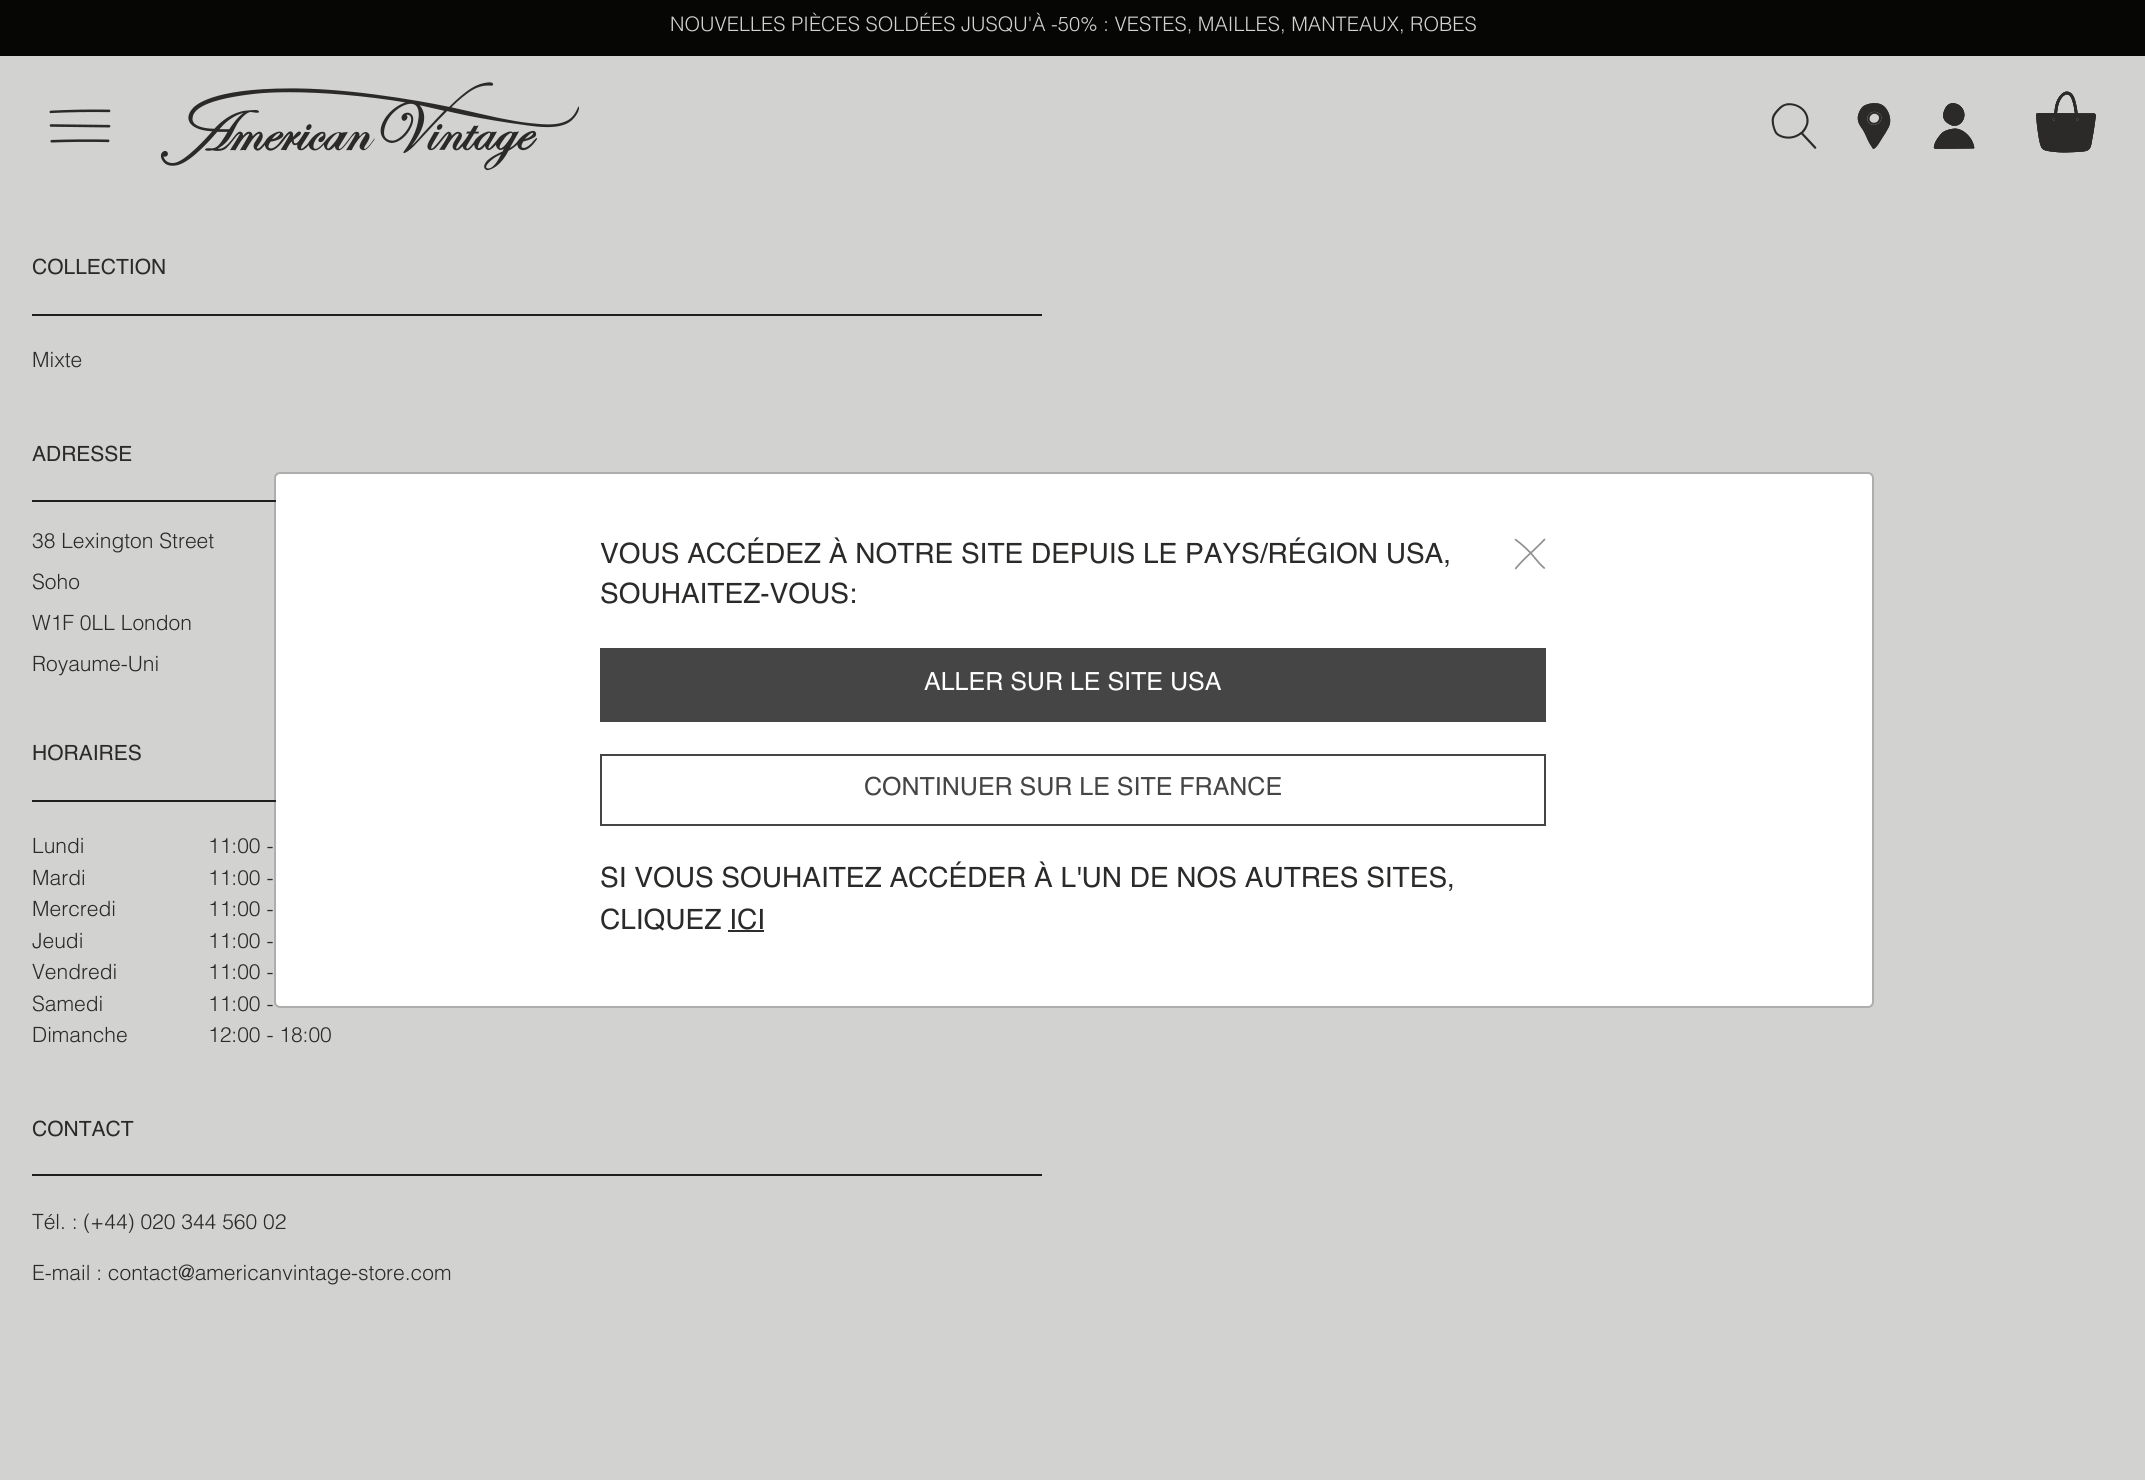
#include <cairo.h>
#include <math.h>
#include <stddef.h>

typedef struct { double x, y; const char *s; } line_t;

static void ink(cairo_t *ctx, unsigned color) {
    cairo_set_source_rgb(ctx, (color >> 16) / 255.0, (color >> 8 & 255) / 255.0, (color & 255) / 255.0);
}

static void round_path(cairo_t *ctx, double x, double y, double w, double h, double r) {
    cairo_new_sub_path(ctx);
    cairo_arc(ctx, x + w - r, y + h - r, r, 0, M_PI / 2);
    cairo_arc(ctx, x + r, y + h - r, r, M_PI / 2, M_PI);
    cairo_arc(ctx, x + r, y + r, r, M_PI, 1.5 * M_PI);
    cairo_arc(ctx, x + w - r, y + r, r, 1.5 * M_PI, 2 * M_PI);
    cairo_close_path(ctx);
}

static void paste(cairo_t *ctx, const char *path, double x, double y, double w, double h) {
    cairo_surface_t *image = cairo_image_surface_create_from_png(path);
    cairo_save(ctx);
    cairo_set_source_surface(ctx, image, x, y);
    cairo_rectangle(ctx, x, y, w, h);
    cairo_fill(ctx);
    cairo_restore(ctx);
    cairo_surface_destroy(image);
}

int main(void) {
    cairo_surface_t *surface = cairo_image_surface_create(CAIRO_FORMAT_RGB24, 2145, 1480);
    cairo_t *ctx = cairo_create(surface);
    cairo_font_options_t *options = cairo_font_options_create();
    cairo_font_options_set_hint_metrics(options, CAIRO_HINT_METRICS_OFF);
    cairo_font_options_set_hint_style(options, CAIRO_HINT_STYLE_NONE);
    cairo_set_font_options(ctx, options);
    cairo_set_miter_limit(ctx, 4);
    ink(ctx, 0xD2D2D1);
    cairo_paint(ctx);
    ink(ctx, 0x060605);
    cairo_rectangle(ctx, 0, 0, 2145, 56);
    cairo_fill(ctx);
    cairo_select_font_face(ctx, "Helvetica Light", CAIRO_FONT_SLANT_NORMAL, CAIRO_FONT_WEIGHT_NORMAL);
    cairo_set_font_size(ctx, 20);
    ink(ctx, 0xD2D2D1);
    cairo_move_to(ctx, 670, 31);
    cairo_show_text(ctx, "NOUVELLES PIÈCES SOLDÉES JUSQU'À -50% : VESTES, MAILLES, MANTEAUX, ROBES");
    paste(ctx, "media/1.png", 49, 109, 62, 34);
    paste(ctx, "media/2.png", 160, 82, 419, 89);
    paste(ctx, "media/3.png", 1771, 103, 46, 46);
    paste(ctx, "media/4.png", 1857, 103, 34, 46);
    paste(ctx, "media/5.png", 1933, 103, 42, 46);
    paste(ctx, "media/6.png", 2036, 91, 60, 62);
    ink(ctx, 0x1F1F1B);
    cairo_rectangle(ctx, 32, 314, 1010, 2);
    cairo_fill(ctx);
    cairo_select_font_face(ctx, "Helvetica", CAIRO_FONT_SLANT_NORMAL, CAIRO_FONT_WEIGHT_NORMAL);
    cairo_set_font_size(ctx, 21);
    ink(ctx, 0x2B2A29);
    cairo_move_to(ctx, 32, 274);
    cairo_show_text(ctx, "COLLECTION");
    cairo_select_font_face(ctx, "Helvetica Light", CAIRO_FONT_SLANT_NORMAL, CAIRO_FONT_WEIGHT_NORMAL);
    cairo_move_to(ctx, 32, 367);
    cairo_show_text(ctx, "Mixte");
    ink(ctx, 0x1F1F1B);
    cairo_rectangle(ctx, 32, 500, 244, 2);
    cairo_fill(ctx);
    cairo_select_font_face(ctx, "Helvetica", CAIRO_FONT_SLANT_NORMAL, CAIRO_FONT_WEIGHT_NORMAL);
    ink(ctx, 0x2B2A29);
    cairo_move_to(ctx, 32, 461);
    cairo_show_text(ctx, "ADRESSE");
    cairo_select_font_face(ctx, "Helvetica Light", CAIRO_FONT_SLANT_NORMAL, CAIRO_FONT_WEIGHT_NORMAL);
    {
        static const line_t items[] = {
            {32, 548, "38 Lexington Street"},
            {32, 589, "Soho"},
            {32, 630, "W1F 0LL London"},
            {32, 671, "Royaume-Uni"},
        };
        for (size_t i = 0; i < sizeof items / sizeof *items; i++) {
            cairo_move_to(ctx, items[i].x, items[i].y);
            cairo_show_text(ctx, items[i].s);
        }
    }
    ink(ctx, 0x1F1F1B);
    cairo_rectangle(ctx, 32, 800, 244, 2);
    cairo_fill(ctx);
    cairo_select_font_face(ctx, "Helvetica", CAIRO_FONT_SLANT_NORMAL, CAIRO_FONT_WEIGHT_NORMAL);
    ink(ctx, 0x2B2A29);
    cairo_move_to(ctx, 32, 760);
    cairo_show_text(ctx, "HORAIRES");
    cairo_select_font_face(ctx, "Helvetica Light", CAIRO_FONT_SLANT_NORMAL, CAIRO_FONT_WEIGHT_NORMAL);
    {
        static const line_t items[] = {
            {32, 853, "Lundi"},
            {208, 853, "11:00 -"},
            {32, 885, "Mardi"},
            {208, 885, "11:00 -"},
            {32, 916, "Mercredi"},
            {208, 916, "11:00 -"},
            {32, 948, "Jeudi"},
            {208, 948, "11:00 -"},
            {32, 979, "Vendredi"},
            {208, 979, "11:00 -"},
            {32, 1011, "Samedi"},
            {208, 1011, "11:00 -"},
            {32, 1042, "Dimanche"},
            {208, 1042, "12:00 - 18:00"},
        };
        for (size_t i = 0; i < sizeof items / sizeof *items; i++) {
            cairo_move_to(ctx, items[i].x, items[i].y);
            cairo_show_text(ctx, items[i].s);
        }
    }
    ink(ctx, 0x1F1F1B);
    cairo_rectangle(ctx, 32, 1174, 1010, 2);
    cairo_fill(ctx);
    cairo_select_font_face(ctx, "Helvetica", CAIRO_FONT_SLANT_NORMAL, CAIRO_FONT_WEIGHT_NORMAL);
    ink(ctx, 0x2B2A29);
    cairo_move_to(ctx, 32, 1136);
    cairo_show_text(ctx, "CONTACT");
    cairo_select_font_face(ctx, "Helvetica Light", CAIRO_FONT_SLANT_NORMAL, CAIRO_FONT_WEIGHT_NORMAL);
    cairo_move_to(ctx, 32, 1229);
    cairo_show_text(ctx, "Tél. : (+44) 020 344 560 02");
    cairo_move_to(ctx, 32, 1280);
    cairo_show_text(ctx, "E-mail : contact@americanvintage-store.com");
    ink(ctx, 0xFFFFFF);
    round_path(ctx, 276, 474, 1596, 532, 4);
    cairo_fill(ctx);
    round_path(ctx, 275, 473, 1598, 534, 5);
    cairo_set_source_rgba(ctx, 0.122, 0.122, 0.106, 0.2);
    cairo_stroke(ctx);
    cairo_select_font_face(ctx, "Helvetica", CAIRO_FONT_SLANT_NORMAL, CAIRO_FONT_WEIGHT_NORMAL);
    cairo_set_font_size(ctx, 28);
    ink(ctx, 0x2B2A29);
    cairo_move_to(ctx, 600, 563);
    cairo_show_text(ctx, "VOUS ACCÉDEZ À NOTRE SITE DEPUIS LE PAYS/RÉGION USA,");
    cairo_move_to(ctx, 600, 603);
    cairo_show_text(ctx, "SOUHAITEZ-VOUS:");
    paste(ctx, "media/7.png", 1514, 538, 32, 32);
    ink(ctx, 0x454545);
    cairo_rectangle(ctx, 600, 648, 946, 74);
    cairo_fill(ctx);
    cairo_set_font_size(ctx, 25);
    ink(ctx, 0xFFFFFF);
    cairo_move_to(ctx, 924, 690);
    cairo_show_text(ctx, "ALLER SUR LE SITE USA");
    cairo_rectangle(ctx, 601, 755, 944, 70);
    ink(ctx, 0x454545);
    cairo_stroke(ctx);
    cairo_move_to(ctx, 864, 795);
    cairo_show_text(ctx, "CONTINUER SUR LE SITE FRANCE");
    cairo_set_font_size(ctx, 28);
    ink(ctx, 0x2B2A29);
    cairo_move_to(ctx, 600, 887);
    cairo_show_text(ctx, "SI VOUS SOUHAITEZ ACCÉDER À L'UN DE NOS AUTRES SITES,");
    cairo_move_to(ctx, 600, 929);
    cairo_show_text(ctx, "CLIQUEZ ICI");
    ink(ctx, 0x2E2D2C);
    cairo_rectangle(ctx, 728, 930, 36, 2);
    cairo_fill(ctx);
    cairo_surface_write_to_png(surface, "image.png");
    cairo_font_options_destroy(options);
    cairo_destroy(ctx);
    cairo_surface_destroy(surface);
    return 0;
}
